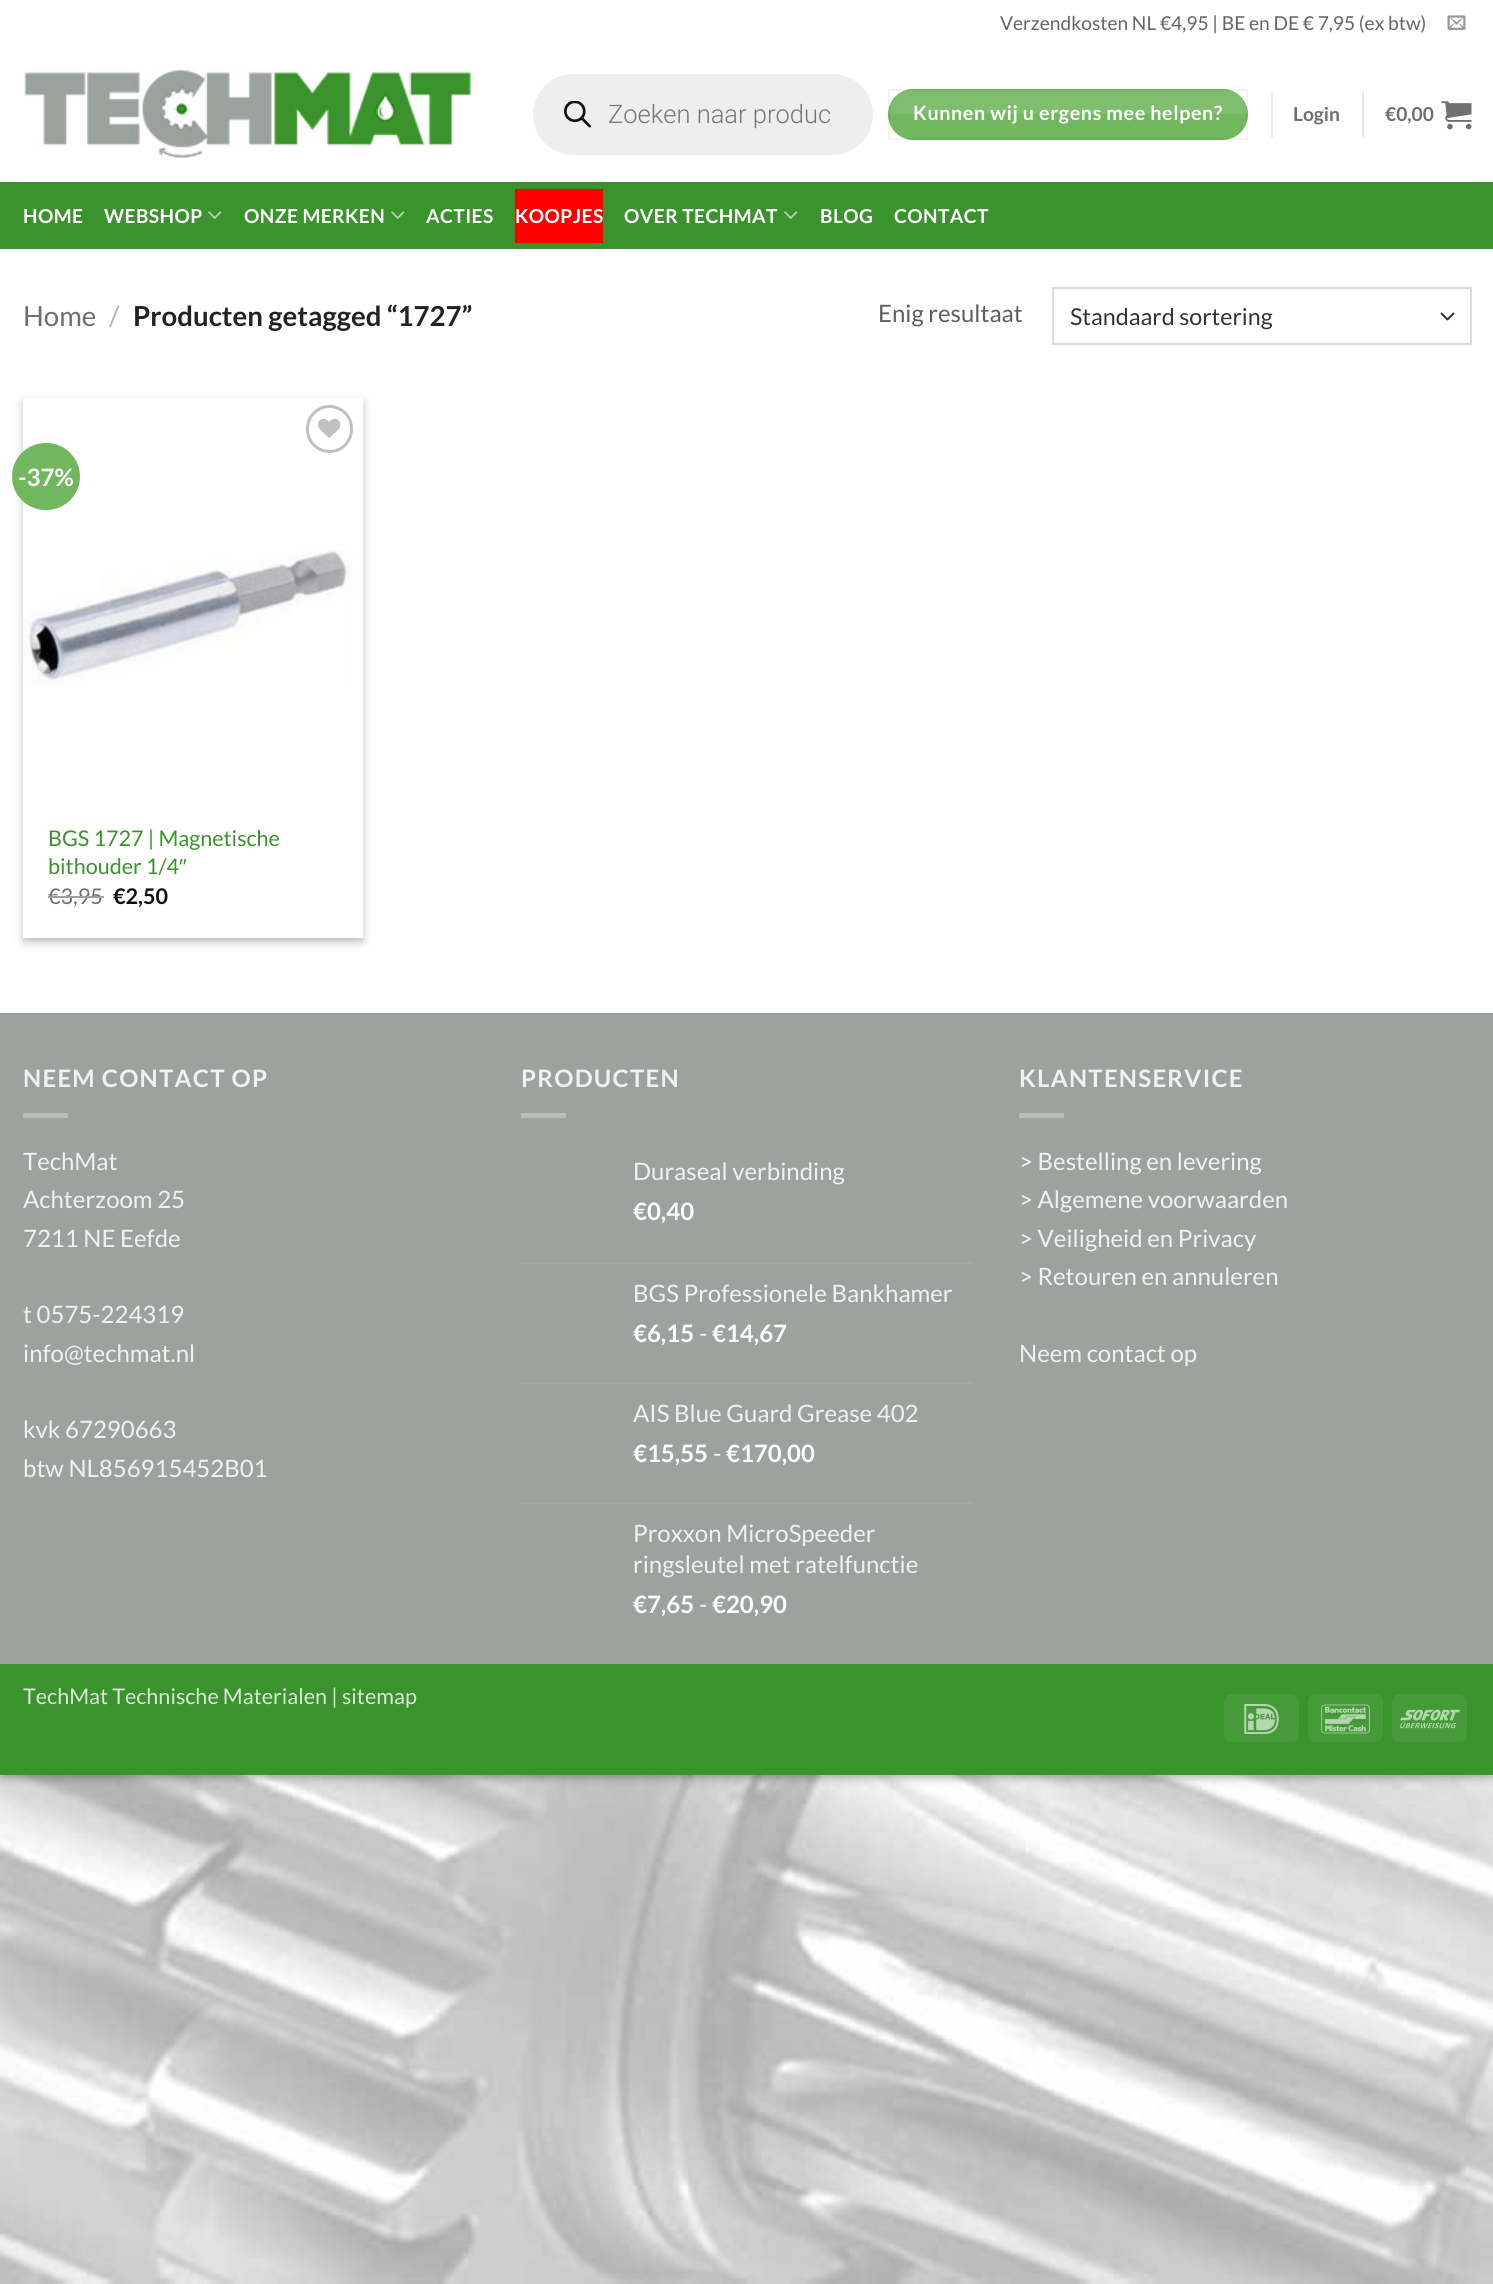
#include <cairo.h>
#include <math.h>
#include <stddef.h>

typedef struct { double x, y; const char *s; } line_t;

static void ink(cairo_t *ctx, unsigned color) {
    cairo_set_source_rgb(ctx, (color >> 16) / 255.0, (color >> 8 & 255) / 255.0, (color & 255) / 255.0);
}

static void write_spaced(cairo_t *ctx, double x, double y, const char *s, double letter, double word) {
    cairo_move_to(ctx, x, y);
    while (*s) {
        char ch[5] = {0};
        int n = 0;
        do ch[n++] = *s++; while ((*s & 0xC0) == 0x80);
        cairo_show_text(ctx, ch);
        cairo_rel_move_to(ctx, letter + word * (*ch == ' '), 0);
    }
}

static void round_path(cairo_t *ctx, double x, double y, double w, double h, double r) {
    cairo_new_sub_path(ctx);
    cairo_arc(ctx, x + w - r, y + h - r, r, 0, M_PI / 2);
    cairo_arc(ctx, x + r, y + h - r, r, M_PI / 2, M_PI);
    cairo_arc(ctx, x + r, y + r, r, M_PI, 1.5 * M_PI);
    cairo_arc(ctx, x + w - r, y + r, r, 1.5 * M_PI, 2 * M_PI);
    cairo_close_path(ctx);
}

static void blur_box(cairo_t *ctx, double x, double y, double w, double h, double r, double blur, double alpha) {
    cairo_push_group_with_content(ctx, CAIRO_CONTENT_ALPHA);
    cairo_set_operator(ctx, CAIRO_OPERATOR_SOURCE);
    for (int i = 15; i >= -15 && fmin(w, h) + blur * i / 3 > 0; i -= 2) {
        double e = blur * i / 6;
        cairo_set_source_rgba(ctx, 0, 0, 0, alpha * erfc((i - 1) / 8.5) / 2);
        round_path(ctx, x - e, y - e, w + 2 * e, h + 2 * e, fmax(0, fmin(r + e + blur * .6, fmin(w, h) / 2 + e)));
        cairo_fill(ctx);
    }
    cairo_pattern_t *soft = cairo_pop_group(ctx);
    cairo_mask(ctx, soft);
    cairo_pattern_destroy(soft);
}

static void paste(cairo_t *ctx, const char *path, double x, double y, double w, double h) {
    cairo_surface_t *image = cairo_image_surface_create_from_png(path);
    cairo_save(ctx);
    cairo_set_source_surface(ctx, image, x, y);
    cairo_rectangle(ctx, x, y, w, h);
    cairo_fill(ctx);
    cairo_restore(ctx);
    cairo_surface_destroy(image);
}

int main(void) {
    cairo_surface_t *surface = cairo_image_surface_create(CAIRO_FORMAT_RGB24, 1493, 2284);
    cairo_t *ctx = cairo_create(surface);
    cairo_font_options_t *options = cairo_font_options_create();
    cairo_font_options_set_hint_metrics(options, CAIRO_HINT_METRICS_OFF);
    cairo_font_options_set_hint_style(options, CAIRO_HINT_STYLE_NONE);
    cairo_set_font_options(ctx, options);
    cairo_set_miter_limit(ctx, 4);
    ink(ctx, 0xFFFFFF);
    cairo_paint(ctx);
    paste(ctx, "media/1.png", 0, 1775, 1493, 509);
    ink(ctx, 0x000000);
    blur_box(ctx, 0, 5, 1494, 1774, 0, 4.5, 0.23);
    blur_box(ctx, 6, 11, 1482, 1762, 0, 4.5, 0.16);
    ink(ctx, 0xFFFFFF);
    cairo_rectangle(ctx, 0, 0, 1493, 1013);
    cairo_fill(ctx);
    cairo_select_font_face(ctx, "Lato", CAIRO_FONT_SLANT_NORMAL, CAIRO_FONT_WEIGHT_NORMAL);
    cairo_set_font_size(ctx, 19.2);
    ink(ctx, 0x656565);
    cairo_move_to(ctx, 1000, 30);
    cairo_show_text(ctx, "Verzendkosten NL €4,95 | BE en DE € 7,95 (ex btw)");
    paste(ctx, "media/2.png", 1447, 15, 19, 15);
    paste(ctx, "media/3.png", 24, 69, 448, 89);
    ink(ctx, 0xEEEEEE);
    round_path(ctx, 533, 74, 340, 81, 40.5);
    cairo_fill(ctx);
    paste(ctx, "media/4.png", 564, 101, 27, 27);
    cairo_select_font_face(ctx, "Roboto Light", CAIRO_FONT_SLANT_NORMAL, CAIRO_FONT_WEIGHT_NORMAL);
    cairo_set_font_size(ctx, 25.5);
    ink(ctx, 0x777777);
    cairo_move_to(ctx, 608, 123);
    cairo_show_text(ctx, "Zoeken naar produc");
    ink(ctx, 0x71B75D);
    round_path(ctx, 888, 89, 360, 51, 25.5);
    cairo_fill(ctx);
    cairo_rectangle(ctx, 889, 90, 358, 49);
    cairo_set_source_rgba(ctx, 0, 0, 0, 0.05);
    cairo_stroke(ctx);
    cairo_set_source_rgba(ctx, 1, 1, 1, 0.1);
    cairo_new_path(ctx);
    cairo_move_to(ctx, 914, 90);
    cairo_line_to(ctx, 1223, 90);
    cairo_curve_to(ctx, 1236.5, 90, 1247, 100.5, 1247, 114);
    cairo_line_to(ctx, 890, 114);
    cairo_curve_to(ctx, 890, 100.5, 900.5, 90, 914, 90);
    cairo_close_path(ctx);
    cairo_fill(ctx);
    cairo_select_font_face(ctx, "Lato", CAIRO_FONT_SLANT_NORMAL, CAIRO_FONT_WEIGHT_BOLD);
    cairo_set_font_size(ctx, 19.75);
    ink(ctx, 0xFFFFFF);
    write_spaced(ctx, 913, 120, "Kunnen wij u ergens mee helpen?", 0.6, 0);
    ink(ctx, 0xE6E6E6);
    cairo_rectangle(ctx, 1271, 92, 2, 45);
    cairo_fill(ctx);
    cairo_set_font_size(ctx, 19.2);
    ink(ctx, 0x6E6E6E);
    cairo_move_to(ctx, 1293, 121);
    cairo_show_text(ctx, "Login");
    ink(ctx, 0xE6E6E6);
    cairo_rectangle(ctx, 1362, 92, 2, 45);
    cairo_fill(ctx);
    ink(ctx, 0x6E6E6E);
    cairo_move_to(ctx, 1385, 121);
    cairo_show_text(ctx, "€0,00");
    paste(ctx, "media/5.png", 1441, 101, 31, 29);
    ink(ctx, 0x3A932C);
    cairo_rectangle(ctx, 0, 182, 1493, 67);
    cairo_fill(ctx);
    ink(ctx, 0x3E8E31);
    cairo_rectangle(ctx, 23, 182, 1449, 2);
    cairo_fill(ctx);
    ink(ctx, 0xFFFFFF);
    write_spaced(ctx, 23, 223, "HOME", 0.4, 0);
    write_spaced(ctx, 104, 223, "WEBSHOP", 0.4, 0);
    paste(ctx, "media/6.png", 208, 211, 14, 8);
    write_spaced(ctx, 244, 223, "ONZE MERKEN", 0.4, 0);
    paste(ctx, "media/6.png", 391, 211, 14, 8);
    write_spaced(ctx, 426, 223, "ACTIES", 0.4, 0);
    ink(ctx, 0xFB0000);
    cairo_rectangle(ctx, 515, 189, 88, 54);
    cairo_fill(ctx);
    ink(ctx, 0xFFFFFF);
    write_spaced(ctx, 515, 223, "KOOPJES", 0.4, 0);
    write_spaced(ctx, 624, 223, "OVER TECHMAT", 0.4, 0);
    paste(ctx, "media/6.png", 784, 211, 14, 8);
    write_spaced(ctx, 820, 223, "BLOG", 0.4, 0);
    write_spaced(ctx, 894, 223, "CONTACT", 0.4, 0);
    cairo_select_font_face(ctx, "Lato", CAIRO_FONT_SLANT_NORMAL, CAIRO_FONT_WEIGHT_NORMAL);
    cairo_set_font_size(ctx, 27.6);
    ink(ctx, 0x6E6E6E);
    cairo_move_to(ctx, 23, 326);
    cairo_show_text(ctx, "Home");
    ink(ctx, 0xB2B2B2);
    cairo_move_to(ctx, 109, 326);
    cairo_show_text(ctx, "/");
    cairo_select_font_face(ctx, "Lato", CAIRO_FONT_SLANT_NORMAL, CAIRO_FONT_WEIGHT_BOLD);
    ink(ctx, 0x222222);
    cairo_move_to(ctx, 133, 326);
    cairo_show_text(ctx, "Producten getagged “1727”");
    cairo_select_font_face(ctx, "Lato", CAIRO_FONT_SLANT_NORMAL, CAIRO_FONT_WEIGHT_NORMAL);
    cairo_set_font_size(ctx, 24);
    ink(ctx, 0x5E5E5E);
    cairo_move_to(ctx, 878, 322);
    cairo_show_text(ctx, "Enig resultaat");
    cairo_new_path(ctx);
    cairo_move_to(ctx, 1441.5, 313.5);
    cairo_line_to(ctx, 1447.5, 319.5);
    cairo_line_to(ctx, 1453.5, 313.5);
    ink(ctx, 0x333333);
    cairo_set_line_cap(ctx, CAIRO_LINE_CAP_ROUND);
    cairo_set_line_join(ctx, CAIRO_LINE_JOIN_ROUND);
    cairo_stroke(ctx);
    cairo_rectangle(ctx, 1053, 288, 418, 56);
    ink(ctx, 0xDDDDDD);
    cairo_set_line_cap(ctx, CAIRO_LINE_CAP_BUTT);
    cairo_set_line_join(ctx, CAIRO_LINE_JOIN_MITER);
    cairo_stroke(ctx);
    cairo_set_font_size(ctx, 23.25);
    ink(ctx, 0x333333);
    cairo_move_to(ctx, 1070, 325);
    cairo_show_text(ctx, "Standaard sortering");
    ink(ctx, 0x000000);
    blur_box(ctx, 23, 402, 340, 540, 0, 4.5, 0.23);
    blur_box(ctx, 29, 408, 328, 528, 0, 4.5, 0.16);
    ink(ctx, 0xFFFFFF);
    cairo_rectangle(ctx, 23, 398, 340, 540);
    cairo_fill(ctx);
    ink(ctx, 0x71B75D);
    round_path(ctx, 12, 443, 68, 67, 33.5);
    cairo_fill(ctx);
    cairo_select_font_face(ctx, "Lato", CAIRO_FONT_SLANT_NORMAL, CAIRO_FONT_WEIGHT_BOLD);
    cairo_set_font_size(ctx, 24);
    ink(ctx, 0xFFFFFF);
    cairo_move_to(ctx, 18, 486);
    cairo_show_text(ctx, "-37%");
    round_path(ctx, 307.5, 406.5, 44, 45, 22);
    ink(ctx, 0xC0C0C0);
    cairo_set_line_width(ctx, 3);
    cairo_stroke(ctx);
    paste(ctx, "media/7.png", 318, 418, 23, 20);
    paste(ctx, "media/8.png", 23, 549, 330, 136);
    cairo_select_font_face(ctx, "Lato", CAIRO_FONT_SLANT_NORMAL, CAIRO_FONT_WEIGHT_NORMAL);
    cairo_set_font_size(ctx, 21.6);
    ink(ctx, 0x3A932C);
    cairo_move_to(ctx, 48, 846);
    cairo_show_text(ctx, "BGS 1727 | Magnetische");
    cairo_move_to(ctx, 48, 874);
    cairo_show_text(ctx, "bithouder 1/4");
    cairo_select_font_face(ctx, "Liberation Sans", CAIRO_FONT_SLANT_NORMAL, CAIRO_FONT_WEIGHT_NORMAL);
    cairo_move_to(ctx, 179, 874);
    cairo_show_text(ctx, "″");
    cairo_select_font_face(ctx, "Lato", CAIRO_FONT_SLANT_NORMAL, CAIRO_FONT_WEIGHT_NORMAL);
    ink(ctx, 0x6E6E6E);
    cairo_move_to(ctx, 48, 904);
    cairo_show_text(ctx, "€3,95");
    ink(ctx, 0x9E9E9E);
    cairo_rectangle(ctx, 48, 896, 56, 2);
    cairo_fill(ctx);
    cairo_select_font_face(ctx, "Lato", CAIRO_FONT_SLANT_NORMAL, CAIRO_FONT_WEIGHT_BOLD);
    ink(ctx, 0x111111);
    cairo_move_to(ctx, 113, 904);
    cairo_show_text(ctx, "€2,50");
    ink(ctx, 0x9CA29E);
    cairo_rectangle(ctx, 0, 1015, 1493, 649);
    cairo_fill(ctx);
    ink(ctx, 0x949A96);
    cairo_rectangle(ctx, 0, 1013, 1493, 2);
    cairo_fill(ctx);
    cairo_set_font_size(ctx, 24);
    ink(ctx, 0xF1F1F1);
    write_spaced(ctx, 23, 1087, "NEEM CONTACT OP", 1.25, 0);
    ink(ctx, 0xBABEBB);
    cairo_rectangle(ctx, 23, 1113, 45, 5);
    cairo_fill(ctx);
    cairo_select_font_face(ctx, "Lato", CAIRO_FONT_SLANT_NORMAL, CAIRO_FONT_WEIGHT_NORMAL);
    ink(ctx, 0xF1F1F1);
    {
        static const line_t items[] = {
            {23, 1170, "TechMat"},
            {23, 1208, "Achterzoom 25"},
            {23, 1247, "7211 NE Eefde"},
            {23, 1323, "t 0575-224319"},
            {23, 1362, "info@techmat.nl"},
            {23, 1438, "kvk 67290663"},
            {23, 1477, "btw NL856915452B01"},
        };
        for (size_t i = 0; i < sizeof items / sizeof *items; i++) {
            cairo_move_to(ctx, items[i].x, items[i].y);
            cairo_show_text(ctx, items[i].s);
        }
    }
    cairo_select_font_face(ctx, "Lato", CAIRO_FONT_SLANT_NORMAL, CAIRO_FONT_WEIGHT_BOLD);
    write_spaced(ctx, 521, 1087, "PRODUCTEN", 1.25, 0);
    ink(ctx, 0xBABEBB);
    cairo_rectangle(ctx, 521, 1113, 45, 5);
    cairo_fill(ctx);
    cairo_select_font_face(ctx, "Lato", CAIRO_FONT_SLANT_NORMAL, CAIRO_FONT_WEIGHT_NORMAL);
    ink(ctx, 0xF1F1F1);
    cairo_move_to(ctx, 633, 1180);
    cairo_show_text(ctx, "Duraseal verbinding");
    cairo_select_font_face(ctx, "Lato", CAIRO_FONT_SLANT_NORMAL, CAIRO_FONT_WEIGHT_BOLD);
    ink(ctx, 0xFFFFFF);
    cairo_move_to(ctx, 633, 1220);
    cairo_show_text(ctx, "€0,40");
    ink(ctx, 0xA4A9A6);
    cairo_rectangle(ctx, 521, 1262, 453, 2);
    cairo_fill(ctx);
    cairo_select_font_face(ctx, "Lato", CAIRO_FONT_SLANT_NORMAL, CAIRO_FONT_WEIGHT_NORMAL);
    ink(ctx, 0xF1F1F1);
    cairo_move_to(ctx, 633, 1302);
    cairo_show_text(ctx, "BGS Professionele Bankhamer");
    cairo_select_font_face(ctx, "Lato", CAIRO_FONT_SLANT_NORMAL, CAIRO_FONT_WEIGHT_BOLD);
    ink(ctx, 0xFFFFFF);
    cairo_move_to(ctx, 633, 1342);
    cairo_show_text(ctx, "€6,15");
    cairo_select_font_face(ctx, "Lato", CAIRO_FONT_SLANT_NORMAL, CAIRO_FONT_WEIGHT_NORMAL);
    ink(ctx, 0xF1F1F1);
    cairo_move_to(ctx, 699, 1342);
    cairo_show_text(ctx, "-");
    cairo_select_font_face(ctx, "Lato", CAIRO_FONT_SLANT_NORMAL, CAIRO_FONT_WEIGHT_BOLD);
    ink(ctx, 0xFFFFFF);
    cairo_move_to(ctx, 712, 1342);
    cairo_show_text(ctx, "€14,67");
    ink(ctx, 0xA4A9A6);
    cairo_rectangle(ctx, 521, 1382, 453, 2);
    cairo_fill(ctx);
    cairo_select_font_face(ctx, "Lato", CAIRO_FONT_SLANT_NORMAL, CAIRO_FONT_WEIGHT_NORMAL);
    ink(ctx, 0xF1F1F1);
    cairo_move_to(ctx, 633, 1422);
    cairo_show_text(ctx, "AIS Blue Guard Grease 402");
    cairo_select_font_face(ctx, "Lato", CAIRO_FONT_SLANT_NORMAL, CAIRO_FONT_WEIGHT_BOLD);
    ink(ctx, 0xFFFFFF);
    cairo_move_to(ctx, 633, 1462);
    cairo_show_text(ctx, "€15,55");
    cairo_select_font_face(ctx, "Lato", CAIRO_FONT_SLANT_NORMAL, CAIRO_FONT_WEIGHT_NORMAL);
    ink(ctx, 0xF1F1F1);
    cairo_move_to(ctx, 713, 1462);
    cairo_show_text(ctx, "-");
    cairo_select_font_face(ctx, "Lato", CAIRO_FONT_SLANT_NORMAL, CAIRO_FONT_WEIGHT_BOLD);
    ink(ctx, 0xFFFFFF);
    cairo_move_to(ctx, 726, 1462);
    cairo_show_text(ctx, "€170,00");
    ink(ctx, 0xA4A9A6);
    cairo_rectangle(ctx, 521, 1502, 453, 2);
    cairo_fill(ctx);
    cairo_select_font_face(ctx, "Lato", CAIRO_FONT_SLANT_NORMAL, CAIRO_FONT_WEIGHT_NORMAL);
    ink(ctx, 0xF1F1F1);
    cairo_move_to(ctx, 633, 1542);
    cairo_show_text(ctx, "Proxxon MicroSpeeder");
    cairo_move_to(ctx, 633, 1573);
    cairo_show_text(ctx, "ringsleutel met ratelfunctie");
    cairo_select_font_face(ctx, "Lato", CAIRO_FONT_SLANT_NORMAL, CAIRO_FONT_WEIGHT_BOLD);
    ink(ctx, 0xFFFFFF);
    cairo_move_to(ctx, 633, 1613);
    cairo_show_text(ctx, "€7,65");
    cairo_select_font_face(ctx, "Lato", CAIRO_FONT_SLANT_NORMAL, CAIRO_FONT_WEIGHT_NORMAL);
    ink(ctx, 0xF1F1F1);
    cairo_move_to(ctx, 699, 1613);
    cairo_show_text(ctx, "-");
    cairo_select_font_face(ctx, "Lato", CAIRO_FONT_SLANT_NORMAL, CAIRO_FONT_WEIGHT_BOLD);
    ink(ctx, 0xFFFFFF);
    cairo_move_to(ctx, 712, 1613);
    cairo_show_text(ctx, "€20,90");
    ink(ctx, 0xF1F1F1);
    write_spaced(ctx, 1019, 1087, "KLANTENSERVICE", 1.25, 0);
    ink(ctx, 0xBABEBB);
    cairo_rectangle(ctx, 1019, 1113, 45, 5);
    cairo_fill(ctx);
    cairo_select_font_face(ctx, "Lato", CAIRO_FONT_SLANT_NORMAL, CAIRO_FONT_WEIGHT_NORMAL);
    ink(ctx, 0xF1F1F1);
    {
        static const line_t items[] = {
            {1019, 1170, "> Bestelling en levering"},
            {1019, 1208, "> Algemene voorwaarden"},
            {1019, 1247, "> Veiligheid en Privacy"},
            {1019, 1285, "> Retouren en annuleren"},
            {1019, 1362, "Neem contact op"},
        };
        for (size_t i = 0; i < sizeof items / sizeof *items; i++) {
            cairo_move_to(ctx, items[i].x, items[i].y);
            cairo_show_text(ctx, items[i].s);
        }
    }
    ink(ctx, 0x3A932C);
    cairo_rectangle(ctx, 0, 1664, 1493, 111);
    cairo_fill(ctx);
    cairo_set_font_size(ctx, 21.6);
    ink(ctx, 0xD8E9D5);
    cairo_move_to(ctx, 23, 1704);
    cairo_show_text(ctx, "TechMat Technische Materialen | sitemap");
    ink(ctx, 0x469A39);
    round_path(ctx, 1224, 1694, 75, 48, 8);
    cairo_fill(ctx);
    paste(ctx, "media/9.png", 1244, 1704, 35, 30);
    round_path(ctx, 1308, 1694, 75, 48, 8);
    cairo_fill(ctx);
    paste(ctx, "media/10.png", 1321, 1704, 49, 30);
    round_path(ctx, 1392, 1694, 75, 48, 8);
    cairo_fill(ctx);
    paste(ctx, "media/11.png", 1400, 1709, 60, 20);
    cairo_surface_write_to_png(surface, "image.png");
    cairo_font_options_destroy(options);
    cairo_destroy(ctx);
    cairo_surface_destroy(surface);
    return 0;
}
